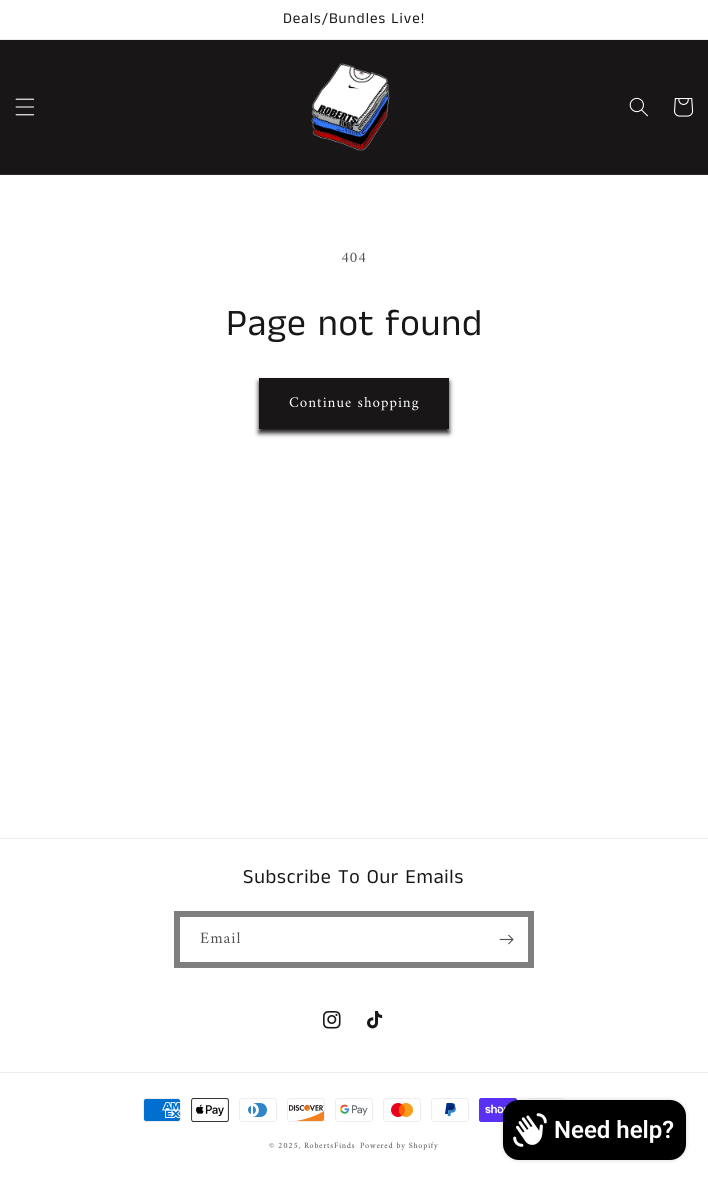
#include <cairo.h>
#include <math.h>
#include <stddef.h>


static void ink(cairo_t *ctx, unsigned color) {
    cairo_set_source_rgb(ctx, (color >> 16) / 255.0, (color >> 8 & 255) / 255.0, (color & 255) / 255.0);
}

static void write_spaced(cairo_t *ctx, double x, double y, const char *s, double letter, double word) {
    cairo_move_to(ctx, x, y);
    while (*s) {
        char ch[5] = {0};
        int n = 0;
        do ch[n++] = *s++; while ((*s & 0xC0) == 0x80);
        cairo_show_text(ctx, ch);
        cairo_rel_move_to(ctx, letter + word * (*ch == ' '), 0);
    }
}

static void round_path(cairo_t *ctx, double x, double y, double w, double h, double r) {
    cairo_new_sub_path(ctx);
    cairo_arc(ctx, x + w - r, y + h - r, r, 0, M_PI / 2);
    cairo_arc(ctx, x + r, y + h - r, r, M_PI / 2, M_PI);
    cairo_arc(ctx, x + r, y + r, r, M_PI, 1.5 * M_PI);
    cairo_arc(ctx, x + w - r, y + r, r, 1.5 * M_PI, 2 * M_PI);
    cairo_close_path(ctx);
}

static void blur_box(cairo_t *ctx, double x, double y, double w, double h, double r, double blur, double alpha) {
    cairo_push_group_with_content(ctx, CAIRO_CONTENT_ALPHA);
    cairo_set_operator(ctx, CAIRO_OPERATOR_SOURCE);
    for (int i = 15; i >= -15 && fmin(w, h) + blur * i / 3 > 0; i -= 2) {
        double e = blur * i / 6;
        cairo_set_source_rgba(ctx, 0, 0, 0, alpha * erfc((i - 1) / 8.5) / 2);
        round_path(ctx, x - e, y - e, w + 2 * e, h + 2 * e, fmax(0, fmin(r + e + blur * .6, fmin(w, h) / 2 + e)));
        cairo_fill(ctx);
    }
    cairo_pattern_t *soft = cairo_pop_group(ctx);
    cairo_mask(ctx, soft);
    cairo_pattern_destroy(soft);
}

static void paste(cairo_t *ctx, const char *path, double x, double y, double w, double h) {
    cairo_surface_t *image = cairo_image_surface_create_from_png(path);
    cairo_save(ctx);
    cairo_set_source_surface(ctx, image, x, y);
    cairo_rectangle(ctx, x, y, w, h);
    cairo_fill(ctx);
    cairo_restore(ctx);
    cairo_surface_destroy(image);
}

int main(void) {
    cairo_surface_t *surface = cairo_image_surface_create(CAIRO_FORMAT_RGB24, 708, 1181);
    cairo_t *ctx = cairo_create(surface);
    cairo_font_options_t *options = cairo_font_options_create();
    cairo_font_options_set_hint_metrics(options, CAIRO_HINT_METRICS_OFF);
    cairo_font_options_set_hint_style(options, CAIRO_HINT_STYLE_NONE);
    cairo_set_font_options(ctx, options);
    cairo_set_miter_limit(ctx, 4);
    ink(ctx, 0xFFFFFF);
    cairo_paint(ctx);
    ink(ctx, 0xEDECEC);
    cairo_rectangle(ctx, 0, 39, 708, 1);
    cairo_fill(ctx);
    cairo_select_font_face(ctx, "Anek Tamil", CAIRO_FONT_SLANT_NORMAL, CAIRO_FONT_WEIGHT_NORMAL);
    cairo_set_font_size(ctx, 15);
    ink(ctx, 0x181616);
    write_spaced(ctx, 283, 23, "Deals/Bundles Live!", 1, 0);
    cairo_rectangle(ctx, 0, 40, 708, 134);
    cairo_fill(ctx);
    ink(ctx, 0x2A2929);
    cairo_rectangle(ctx, 0, 174, 708, 1);
    cairo_fill(ctx);
    paste(ctx, "media/1.png", 15, 98, 20, 18);
    paste(ctx, "media/2.png", 311, 63, 79, 88);
    paste(ctx, "media/3.png", 629, 97, 19, 20);
    paste(ctx, "media/4.png", 674, 98, 20, 19);
    cairo_select_font_face(ctx, "Amiri", CAIRO_FONT_SLANT_NORMAL, CAIRO_FONT_WEIGHT_NORMAL);
    ink(ctx, 0x525050);
    write_spaced(ctx, 341, 262, "404", 0.5, 0);
    cairo_select_font_face(ctx, "Anek Tamil", CAIRO_FONT_SLANT_NORMAL, CAIRO_FONT_WEIGHT_NORMAL);
    cairo_set_font_size(ctx, 37.5);
    ink(ctx, 0x181616);
    write_spaced(ctx, 226, 335, "Page not found", 0.75, 0);
    ink(ctx, 0x181616);
    blur_box(ctx, 259, 382, 190, 51, 0, 2.5, 1);
    ink(ctx, 0x181616);
    cairo_rectangle(ctx, 259, 378, 190, 51);
    cairo_fill(ctx);
    cairo_select_font_face(ctx, "Amiri", CAIRO_FONT_SLANT_NORMAL, CAIRO_FONT_WEIGHT_NORMAL);
    cairo_set_font_size(ctx, 15);
    ink(ctx, 0xFFFFFF);
    write_spaced(ctx, 289, 407, "Continue shopping", 1, 0);
    ink(ctx, 0xEDECEC);
    cairo_rectangle(ctx, 0, 838, 708, 1);
    cairo_fill(ctx);
    cairo_select_font_face(ctx, "Anek Tamil", CAIRO_FONT_SLANT_NORMAL, CAIRO_FONT_WEIGHT_NORMAL);
    cairo_set_font_size(ctx, 20);
    ink(ctx, 0x181616);
    write_spaced(ctx, 243, 883, "Subscribe To Our Emails", 0.75, 0);
    cairo_rectangle(ctx, 177, 914, 354, 51);
    ink(ctx, 0x807F7F);
    cairo_set_line_width(ctx, 6);
    cairo_stroke(ctx);
    cairo_select_font_face(ctx, "Amiri", CAIRO_FONT_SLANT_NORMAL, CAIRO_FONT_WEIGHT_NORMAL);
    cairo_set_font_size(ctx, 16);
    ink(ctx, 0x525050);
    write_spaced(ctx, 200, 943, "Email", 1, 0);
    paste(ctx, "media/5.png", 499, 934, 15, 11);
    paste(ctx, "media/6.png", 323, 1011, 18, 18);
    paste(ctx, "media/7.png", 367, 1011, 16, 18);
    ink(ctx, 0xEDECEC);
    cairo_rectangle(ctx, 0, 1072, 708, 1);
    cairo_fill(ctx);
    paste(ctx, "media/8.png", 143, 1098, 38, 24);
    paste(ctx, "media/9.png", 191, 1098, 38, 24);
    paste(ctx, "media/10.png", 239, 1098, 38, 24);
    paste(ctx, "media/11.png", 287, 1098, 38, 24);
    paste(ctx, "media/12.png", 335, 1098, 38, 24);
    paste(ctx, "media/13.png", 383, 1098, 38, 24);
    paste(ctx, "media/14.png", 431, 1098, 38, 24);
    paste(ctx, "media/15.png", 479, 1098, 38, 24);
    paste(ctx, "media/16.png", 527, 1098, 38, 2);
    cairo_set_font_size(ctx, 8.25);
    ink(ctx, 0x525050);
    write_spaced(ctx, 269, 1148, "© 2025, RobertsFinds", 0.7, 0);
    write_spaced(ctx, 360, 1148, "Powered by Shopify", 0.7, 0);
    ink(ctx, 0x000000);
    blur_box(ctx, 503, 1100, 183, 60, 16, 2.5, 0.15);
    ink(ctx, 0x000000);
    round_path(ctx, 503, 1100, 183, 60, 16);
    cairo_fill(ctx);
    paste(ctx, "media/17.png", 513, 1113, 34, 34);
    cairo_select_font_face(ctx, "Roboto SemiBold", CAIRO_FONT_SLANT_NORMAL, CAIRO_FONT_WEIGHT_NORMAL);
    cairo_set_font_size(ctx, 24);
    ink(ctx, 0xFFFFFF);
    cairo_move_to(ctx, 554, 1138);
    cairo_show_text(ctx, "Need help?");
    cairo_surface_write_to_png(surface, "image.png");
    cairo_font_options_destroy(options);
    cairo_destroy(ctx);
    cairo_surface_destroy(surface);
    return 0;
}
